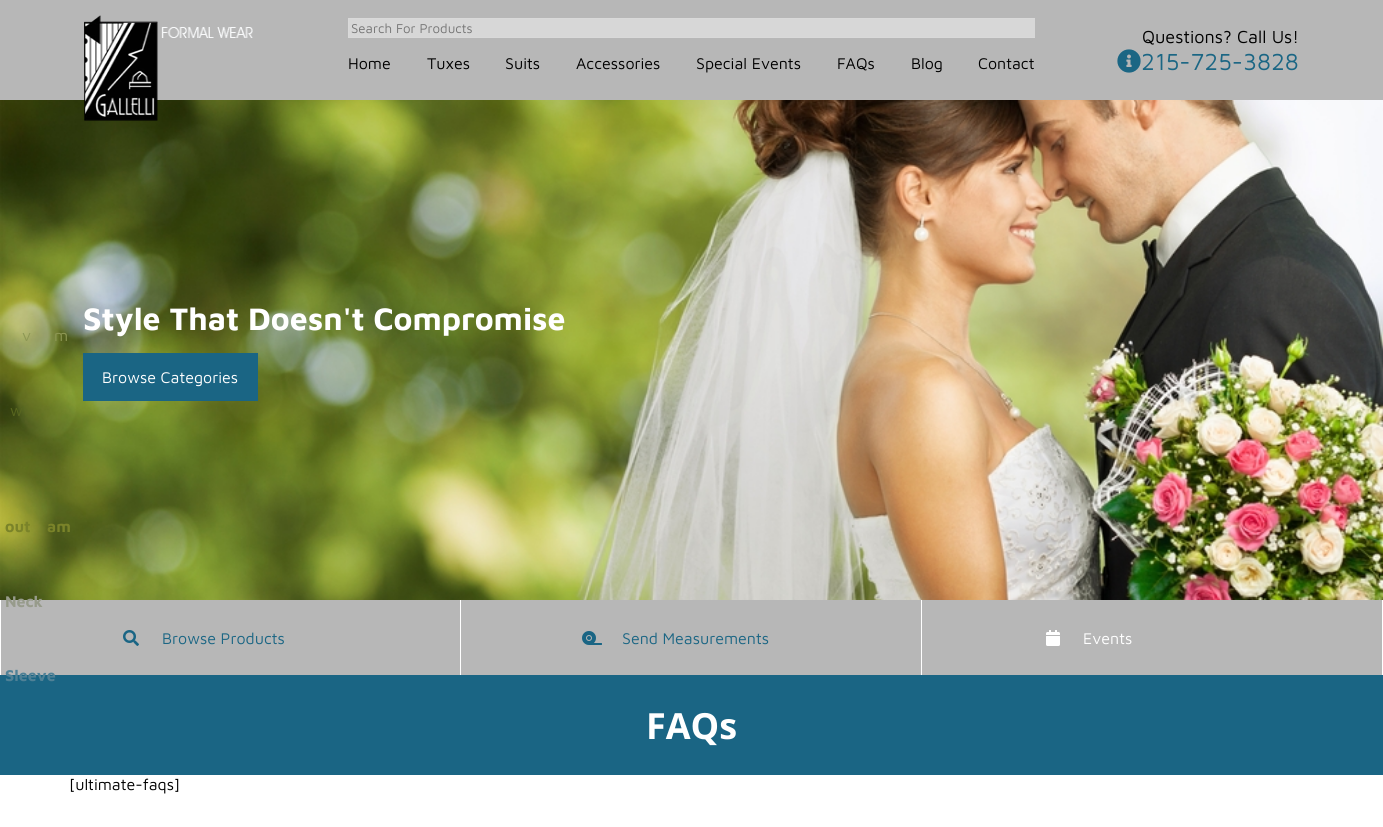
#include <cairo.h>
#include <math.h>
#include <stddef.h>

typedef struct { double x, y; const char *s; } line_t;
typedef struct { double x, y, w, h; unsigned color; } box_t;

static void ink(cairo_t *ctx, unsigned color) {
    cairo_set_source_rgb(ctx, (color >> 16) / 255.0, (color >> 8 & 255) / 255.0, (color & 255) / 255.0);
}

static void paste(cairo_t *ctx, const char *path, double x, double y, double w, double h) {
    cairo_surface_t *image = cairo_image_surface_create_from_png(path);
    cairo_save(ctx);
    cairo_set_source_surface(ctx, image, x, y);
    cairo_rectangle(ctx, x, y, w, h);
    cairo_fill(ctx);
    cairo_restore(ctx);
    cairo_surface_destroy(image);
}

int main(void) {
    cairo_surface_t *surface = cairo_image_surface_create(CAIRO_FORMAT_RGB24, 1383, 827);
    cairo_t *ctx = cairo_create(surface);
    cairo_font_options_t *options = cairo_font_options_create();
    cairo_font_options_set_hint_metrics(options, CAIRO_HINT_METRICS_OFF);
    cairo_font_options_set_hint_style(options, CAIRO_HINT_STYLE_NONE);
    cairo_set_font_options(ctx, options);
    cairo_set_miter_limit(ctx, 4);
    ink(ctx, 0xFFFFFF);
    cairo_paint(ctx);
    ink(ctx, 0xB7B7B7);
    cairo_rectangle(ctx, 0, 0, 1383, 675);
    cairo_fill(ctx);
    paste(ctx, "media/3.png", 0, 100, 1383, 500);
    cairo_select_font_face(ctx, "Maven Pro", CAIRO_FONT_SLANT_NORMAL, CAIRO_FONT_WEIGHT_NORMAL);
    cairo_set_font_size(ctx, 16);
    ink(ctx, 0x8D9754);
    cairo_move_to(ctx, 22, 341);
    cairo_show_text(ctx, "v");
    cairo_move_to(ctx, 54, 341);
    cairo_show_text(ctx, "m");
    ink(ctx, 0x58661F);
    cairo_move_to(ctx, 10, 416);
    cairo_show_text(ctx, "w");
    cairo_select_font_face(ctx, "Maven Pro", CAIRO_FONT_SLANT_NORMAL, CAIRO_FONT_WEIGHT_BOLD);
    ink(ctx, 0x7A8329);
    cairo_move_to(ctx, 5, 532);
    cairo_show_text(ctx, "out");
    cairo_move_to(ctx, 47, 532);
    cairo_show_text(ctx, "am");
    ink(ctx, 0x979B8B);
    cairo_move_to(ctx, 5, 607);
    cairo_show_text(ctx, "Neck");
    ink(ctx, 0x1A6584);
    cairo_rectangle(ctx, 0, 675, 1383, 100);
    cairo_fill(ctx);
    ink(ctx, 0x508196);
    cairo_move_to(ctx, 5, 681);
    cairo_show_text(ctx, "Sleeve");
    paste(ctx, "media/1.png", 84, 15, 169, 106);
    {
        static const box_t items[] = {
            {349, 19, 686, 18, 0xD7D7D7},
            {348, 18, 687, 1, 0xD9D9D9},
            {348, 37, 687, 1, 0xD9D9D9},
            {348, 18, 1, 20, 0xD9D9D9},
        };
        for (size_t i = 0; i < sizeof items / sizeof *items; i++) {
            ink(ctx, items[i].color);
            cairo_rectangle(ctx, items[i].x, items[i].y, items[i].w, items[i].h);
            cairo_fill(ctx);
        }
    }
    cairo_select_font_face(ctx, "Maven Pro", CAIRO_FONT_SLANT_NORMAL, CAIRO_FONT_WEIGHT_NORMAL);
    cairo_set_font_size(ctx, 13.25);
    ink(ctx, 0x757575);
    cairo_move_to(ctx, 351, 33);
    cairo_show_text(ctx, "Search For Products");
    cairo_set_font_size(ctx, 16);
    ink(ctx, 0x000000);
    {
        static const line_t items[] = {
            {348, 69, "Home"},
            {427, 69, "Tuxes"},
            {505, 69, "Suits"},
            {576, 69, "Accessories"},
            {696, 69, "Special Events"},
            {837, 69, "FAQs"},
            {911, 69, "Blog"},
            {978, 69, "Contact"},
        };
        for (size_t i = 0; i < sizeof items / sizeof *items; i++) {
            cairo_move_to(ctx, items[i].x, items[i].y);
            cairo_show_text(ctx, items[i].s);
        }
    }
    cairo_set_font_size(ctx, 18);
    cairo_move_to(ctx, 1142, 43);
    cairo_show_text(ctx, "Questions? Call Us!");
    paste(ctx, "media/2.png", 1117, 49, 24, 24);
    cairo_set_font_size(ctx, 24);
    ink(ctx, 0x1B6684);
    cairo_move_to(ctx, 1141, 70);
    cairo_show_text(ctx, "215-725-3828");
    cairo_select_font_face(ctx, "Maven Pro", CAIRO_FONT_SLANT_NORMAL, CAIRO_FONT_WEIGHT_BOLD);
    cairo_set_font_size(ctx, 32);
    ink(ctx, 0xFFFFFF);
    cairo_move_to(ctx, 83, 330);
    cairo_show_text(ctx, "Style That Doesn't Compromise");
    ink(ctx, 0x1A6584);
    cairo_rectangle(ctx, 83, 353, 175, 48);
    cairo_fill(ctx);
    cairo_select_font_face(ctx, "Maven Pro", CAIRO_FONT_SLANT_NORMAL, CAIRO_FONT_WEIGHT_NORMAL);
    cairo_set_font_size(ctx, 16);
    ink(ctx, 0xFFFFFF);
    cairo_move_to(ctx, 102, 383);
    cairo_show_text(ctx, "Browse Categories");
    cairo_rectangle(ctx, 460, 600, 1, 75);
    cairo_fill(ctx);
    cairo_rectangle(ctx, 0, 600, 1, 75);
    cairo_fill(ctx);
    paste(ctx, "media/4.png", 123, 630, 16, 16);
    ink(ctx, 0x1B6684);
    cairo_move_to(ctx, 162, 644);
    cairo_show_text(ctx, "Browse Products");
    ink(ctx, 0xFFFFFF);
    cairo_rectangle(ctx, 921, 600, 1, 75);
    cairo_fill(ctx);
    paste(ctx, "media/5.png", 582, 631, 20, 14);
    ink(ctx, 0x1B6684);
    cairo_move_to(ctx, 622, 644);
    cairo_show_text(ctx, "Send Measurements");
    ink(ctx, 0xFFFFFF);
    cairo_rectangle(ctx, 1382, 600, 1, 75);
    cairo_fill(ctx);
    paste(ctx, "media/6.png", 1046, 630, 14, 16);
    cairo_move_to(ctx, 1083, 644);
    cairo_show_text(ctx, "Events");
    cairo_select_font_face(ctx, "Open Sans", CAIRO_FONT_SLANT_NORMAL, CAIRO_FONT_WEIGHT_BOLD);
    cairo_set_font_size(ctx, 36);
    cairo_move_to(ctx, 646, 739);
    cairo_show_text(ctx, "FAQs");
    cairo_select_font_face(ctx, "Maven Pro", CAIRO_FONT_SLANT_NORMAL, CAIRO_FONT_WEIGHT_NORMAL);
    cairo_set_font_size(ctx, 16);
    ink(ctx, 0x000000);
    cairo_move_to(ctx, 69, 790);
    cairo_show_text(ctx, "[ultimate-faqs]");
    cairo_surface_write_to_png(surface, "image.png");
    cairo_font_options_destroy(options);
    cairo_destroy(ctx);
    cairo_surface_destroy(surface);
    return 0;
}
